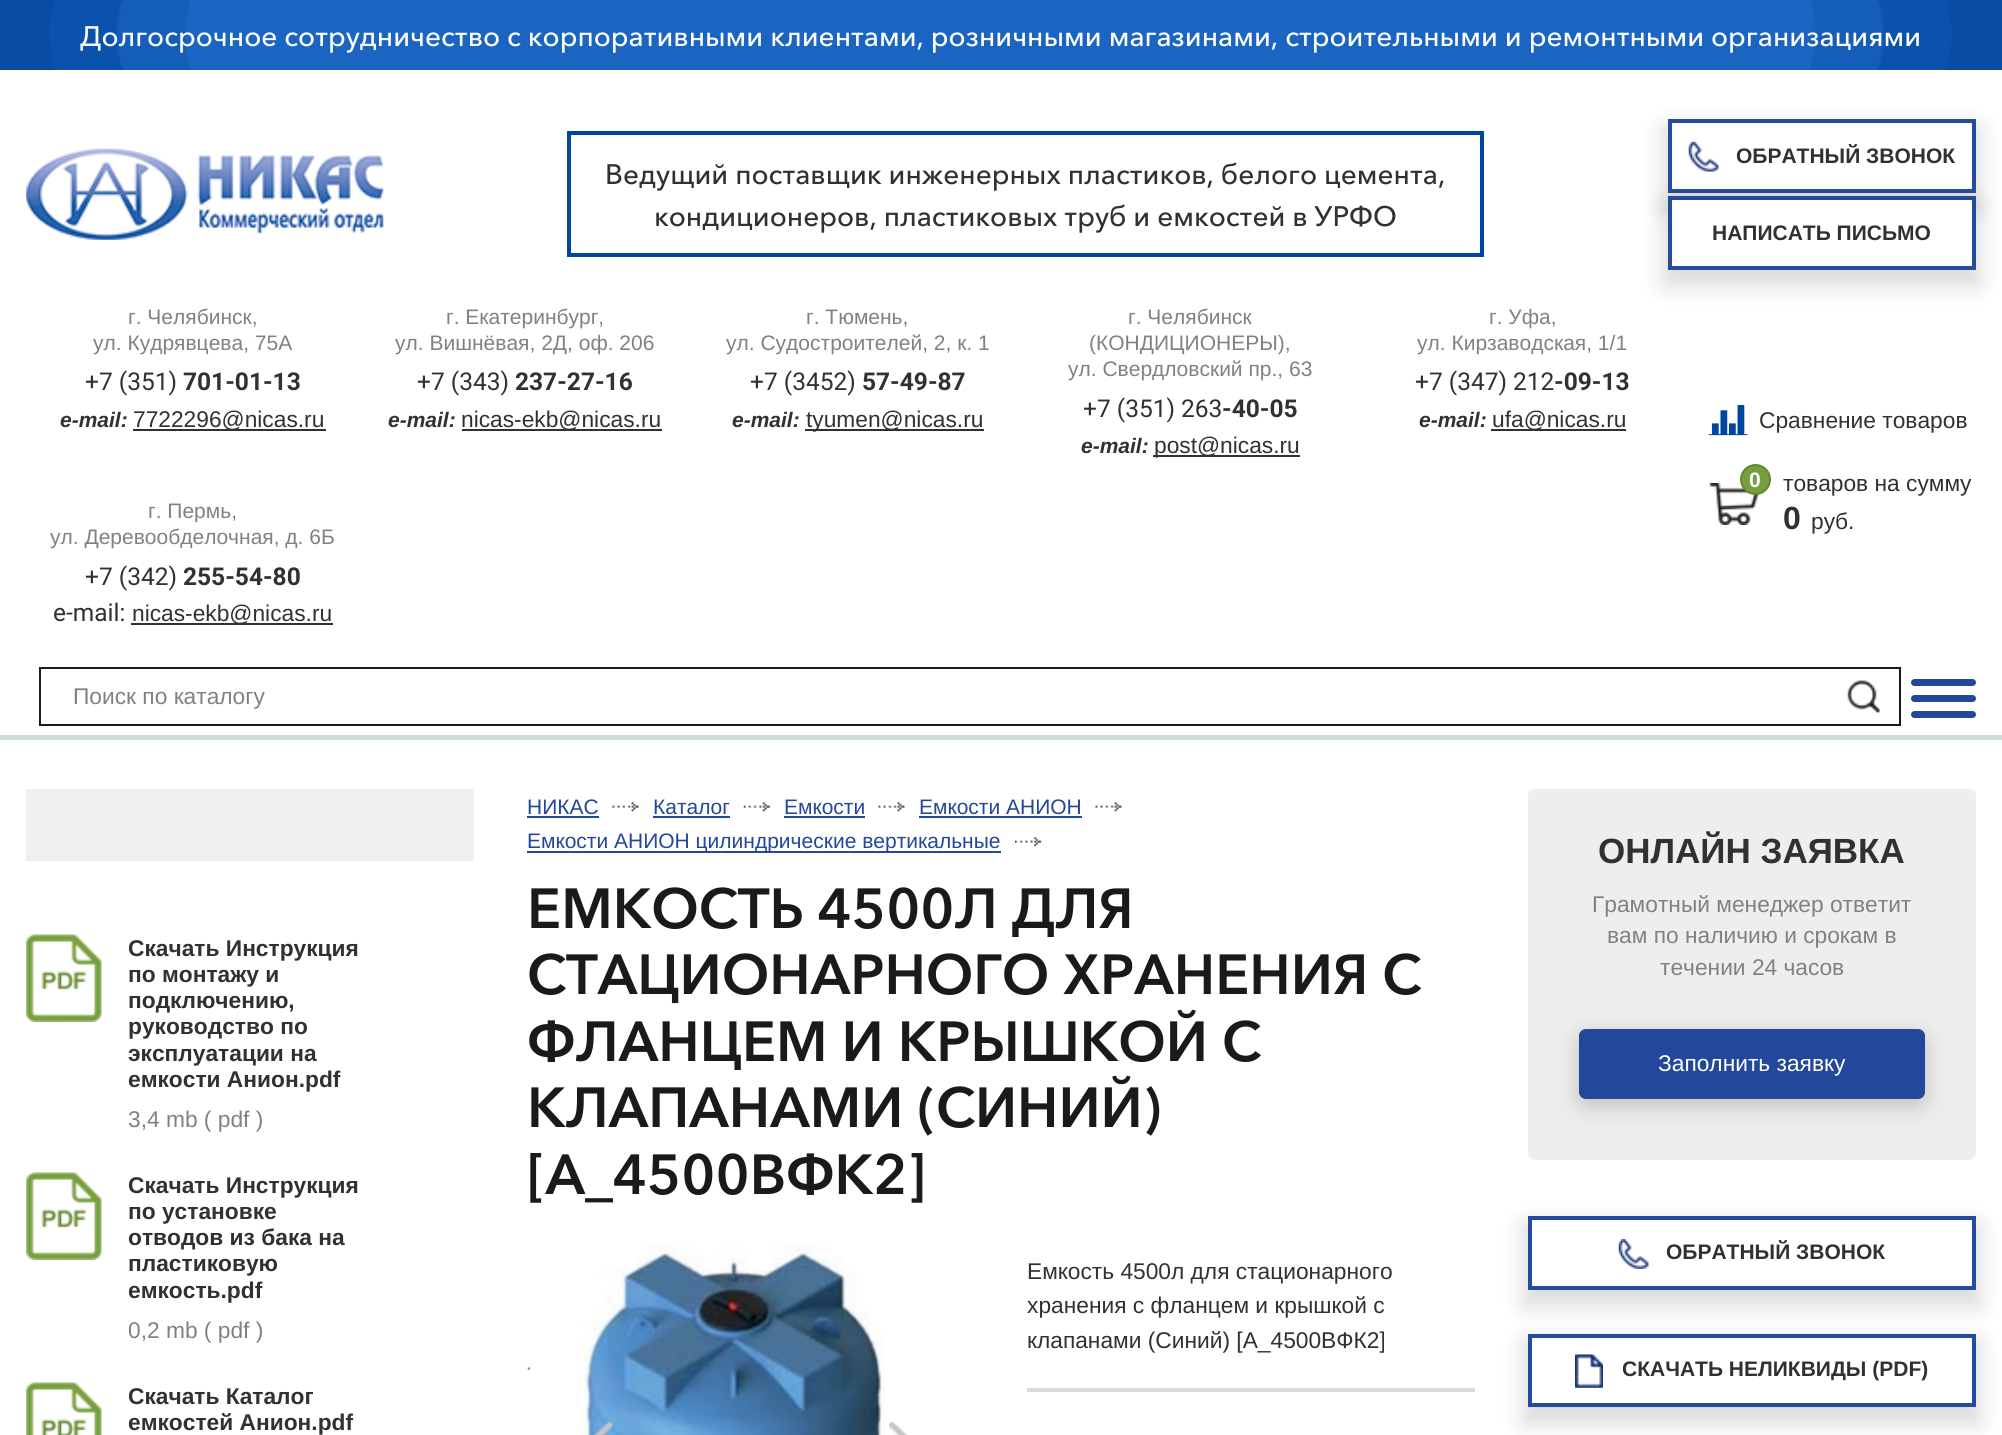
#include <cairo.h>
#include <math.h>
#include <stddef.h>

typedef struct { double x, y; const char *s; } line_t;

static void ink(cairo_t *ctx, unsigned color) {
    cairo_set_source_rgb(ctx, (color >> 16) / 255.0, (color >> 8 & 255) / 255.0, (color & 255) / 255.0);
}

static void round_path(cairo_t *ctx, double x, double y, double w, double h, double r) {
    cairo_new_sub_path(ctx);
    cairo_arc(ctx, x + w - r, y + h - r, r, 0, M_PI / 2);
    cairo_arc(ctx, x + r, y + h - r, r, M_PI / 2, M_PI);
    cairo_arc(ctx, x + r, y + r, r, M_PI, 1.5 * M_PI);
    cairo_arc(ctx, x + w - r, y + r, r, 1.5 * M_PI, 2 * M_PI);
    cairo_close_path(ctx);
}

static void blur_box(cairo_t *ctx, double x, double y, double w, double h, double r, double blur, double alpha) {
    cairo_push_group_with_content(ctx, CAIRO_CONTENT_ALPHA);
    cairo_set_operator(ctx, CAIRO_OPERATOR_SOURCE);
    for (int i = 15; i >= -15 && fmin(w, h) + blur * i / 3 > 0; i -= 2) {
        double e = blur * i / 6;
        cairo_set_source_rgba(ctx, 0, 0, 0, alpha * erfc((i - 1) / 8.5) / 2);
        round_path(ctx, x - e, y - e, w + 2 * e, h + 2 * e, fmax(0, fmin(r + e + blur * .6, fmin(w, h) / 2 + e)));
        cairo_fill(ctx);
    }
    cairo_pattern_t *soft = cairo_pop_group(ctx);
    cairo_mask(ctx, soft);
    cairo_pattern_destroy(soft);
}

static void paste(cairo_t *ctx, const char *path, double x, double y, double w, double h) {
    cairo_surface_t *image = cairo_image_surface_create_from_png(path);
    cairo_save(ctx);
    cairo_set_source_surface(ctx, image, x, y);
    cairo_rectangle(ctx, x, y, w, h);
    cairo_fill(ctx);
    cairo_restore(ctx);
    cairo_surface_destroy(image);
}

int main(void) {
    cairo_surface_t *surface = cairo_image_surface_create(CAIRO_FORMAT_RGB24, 2002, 1435);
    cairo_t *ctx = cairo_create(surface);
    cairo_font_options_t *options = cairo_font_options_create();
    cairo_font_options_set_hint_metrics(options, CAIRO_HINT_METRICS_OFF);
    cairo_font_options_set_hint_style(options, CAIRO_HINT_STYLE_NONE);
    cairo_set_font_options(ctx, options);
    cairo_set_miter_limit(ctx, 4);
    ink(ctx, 0xFFFFFF);
    cairo_paint(ctx);
    paste(ctx, "media/1.png", 0, 0, 2002, 70);
    cairo_select_font_face(ctx, "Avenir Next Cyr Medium", CAIRO_FONT_SLANT_NORMAL, CAIRO_FONT_WEIGHT_NORMAL);
    cairo_set_font_size(ctx, 28);
    ink(ctx, 0xFFFFFF);
    cairo_move_to(ctx, 80, 46);
    cairo_show_text(ctx, "Долгосрочное сотрудничество с корпоративными клиентами, розничными магазинами, строительными и ремонтными организациями");
    paste(ctx, "media/2.png", 26, 148, 358, 92);
    cairo_rectangle(ctx, 569, 133, 913, 122);
    ink(ctx, 0x00469F);
    cairo_set_line_width(ctx, 4);
    cairo_stroke(ctx);
    ink(ctx, 0x313131);
    cairo_move_to(ctx, 605, 184);
    cairo_show_text(ctx, "Ведущий поставщик инженерных пластиков, белого цемента,");
    cairo_move_to(ctx, 654, 226);
    cairo_show_text(ctx, "кондиционеров, пластиковых труб и емкостей в УРФО");
    ink(ctx, 0x000000);
    blur_box(ctx, 1664, 128, 315, 80, 0, 12, 0.15);
    ink(ctx, 0xFFFFFF);
    cairo_rectangle(ctx, 1670, 121, 304, 70);
    cairo_fill_preserve(ctx);
    ink(ctx, 0x274B9C);
    cairo_stroke(ctx);
    paste(ctx, "media/3.png", 1688, 141, 31, 31);
    cairo_select_font_face(ctx, "Liberation Sans", CAIRO_FONT_SLANT_NORMAL, CAIRO_FONT_WEIGHT_BOLD);
    cairo_set_font_size(ctx, 21);
    ink(ctx, 0x313131);
    cairo_move_to(ctx, 1736, 163);
    cairo_show_text(ctx, "ОБРАТНЫЙ ЗВОНОК");
    ink(ctx, 0x000000);
    blur_box(ctx, 1664, 205, 315, 80, 0, 12, 0.15);
    ink(ctx, 0xFFFFFF);
    cairo_rectangle(ctx, 1670, 198, 304, 70);
    cairo_fill_preserve(ctx);
    ink(ctx, 0x274B9C);
    cairo_stroke(ctx);
    ink(ctx, 0x313131);
    cairo_move_to(ctx, 1712, 240);
    cairo_show_text(ctx, "НАПИСАТЬ ПИСЬМО");
    cairo_select_font_face(ctx, "Liberation Sans", CAIRO_FONT_SLANT_NORMAL, CAIRO_FONT_WEIGHT_NORMAL);
    ink(ctx, 0x848080);
    cairo_move_to(ctx, 128, 324);
    cairo_show_text(ctx, "г. Челябинск,");
    cairo_move_to(ctx, 93, 350);
    cairo_show_text(ctx, "ул. Кудрявцева, 75А");
    cairo_select_font_face(ctx, "Roboto", CAIRO_FONT_SLANT_NORMAL, CAIRO_FONT_WEIGHT_NORMAL);
    cairo_set_font_size(ctx, 24.5);
    ink(ctx, 0x313131);
    cairo_move_to(ctx, 85, 390);
    cairo_show_text(ctx, "+7 (351)");
    cairo_select_font_face(ctx, "Roboto", CAIRO_FONT_SLANT_NORMAL, CAIRO_FONT_WEIGHT_BOLD);
    cairo_move_to(ctx, 183, 390);
    cairo_show_text(ctx, "701-01-13");
    cairo_select_font_face(ctx, "Liberation Sans", CAIRO_FONT_SLANT_ITALIC, CAIRO_FONT_WEIGHT_BOLD);
    cairo_set_font_size(ctx, 21);
    cairo_move_to(ctx, 60, 427);
    cairo_show_text(ctx, "e-mail:");
    cairo_rectangle(ctx, 133, 429, 193, 2);
    cairo_fill(ctx);
    cairo_select_font_face(ctx, "Liberation Sans", CAIRO_FONT_SLANT_NORMAL, CAIRO_FONT_WEIGHT_NORMAL);
    cairo_set_font_size(ctx, 22.75);
    cairo_move_to(ctx, 133, 427);
    cairo_show_text(ctx, "7722296@nicas.ru");
    cairo_set_font_size(ctx, 21);
    ink(ctx, 0x848080);
    cairo_move_to(ctx, 446, 324);
    cairo_show_text(ctx, "г. Екатеринбург,");
    cairo_move_to(ctx, 395, 350);
    cairo_show_text(ctx, "ул. Вишнёвая, 2Д, оф. 206");
    cairo_select_font_face(ctx, "Roboto", CAIRO_FONT_SLANT_NORMAL, CAIRO_FONT_WEIGHT_NORMAL);
    cairo_set_font_size(ctx, 24.5);
    ink(ctx, 0x313131);
    cairo_move_to(ctx, 417, 390);
    cairo_show_text(ctx, "+7 (343)");
    cairo_select_font_face(ctx, "Roboto", CAIRO_FONT_SLANT_NORMAL, CAIRO_FONT_WEIGHT_BOLD);
    cairo_move_to(ctx, 515, 390);
    cairo_show_text(ctx, "237-27-16");
    cairo_select_font_face(ctx, "Liberation Sans", CAIRO_FONT_SLANT_ITALIC, CAIRO_FONT_WEIGHT_BOLD);
    cairo_set_font_size(ctx, 21);
    cairo_move_to(ctx, 388, 427);
    cairo_show_text(ctx, "e-mail:");
    cairo_rectangle(ctx, 462, 429, 200, 2);
    cairo_fill(ctx);
    cairo_select_font_face(ctx, "Liberation Sans", CAIRO_FONT_SLANT_NORMAL, CAIRO_FONT_WEIGHT_NORMAL);
    cairo_set_font_size(ctx, 22.75);
    cairo_move_to(ctx, 461, 427);
    cairo_show_text(ctx, "nicas-ekb@nicas.ru");
    cairo_set_font_size(ctx, 21);
    ink(ctx, 0x848080);
    cairo_move_to(ctx, 806, 324);
    cairo_show_text(ctx, "г. Тюмень,");
    cairo_move_to(ctx, 726, 350);
    cairo_show_text(ctx, "ул. Судостроителей, 2, к. 1");
    cairo_select_font_face(ctx, "Roboto", CAIRO_FONT_SLANT_NORMAL, CAIRO_FONT_WEIGHT_NORMAL);
    cairo_set_font_size(ctx, 24.5);
    ink(ctx, 0x313131);
    cairo_move_to(ctx, 750, 390);
    cairo_show_text(ctx, "+7 (3452)");
    cairo_select_font_face(ctx, "Roboto", CAIRO_FONT_SLANT_NORMAL, CAIRO_FONT_WEIGHT_BOLD);
    cairo_move_to(ctx, 862, 390);
    cairo_show_text(ctx, "57-49-87");
    cairo_select_font_face(ctx, "Liberation Sans", CAIRO_FONT_SLANT_ITALIC, CAIRO_FONT_WEIGHT_BOLD);
    cairo_set_font_size(ctx, 21);
    cairo_move_to(ctx, 732, 427);
    cairo_show_text(ctx, "e-mail:");
    cairo_rectangle(ctx, 805, 429, 179, 2);
    cairo_fill(ctx);
    cairo_select_font_face(ctx, "Liberation Sans", CAIRO_FONT_SLANT_NORMAL, CAIRO_FONT_WEIGHT_NORMAL);
    cairo_set_font_size(ctx, 22.75);
    cairo_move_to(ctx, 806, 427);
    cairo_show_text(ctx, "tyumen@nicas.ru");
    cairo_set_font_size(ctx, 21);
    ink(ctx, 0x848080);
    {
        static const line_t items[] = {
            {1128, 324, "г. Челябинск"},
            {1089, 350, "(КОНДИЦИОНЕРЫ),"},
            {1068, 376, "ул. Свердловский пр., 63"},
        };
        for (size_t i = 0; i < sizeof items / sizeof *items; i++) {
            cairo_move_to(ctx, items[i].x, items[i].y);
            cairo_show_text(ctx, items[i].s);
        }
    }
    cairo_select_font_face(ctx, "Roboto", CAIRO_FONT_SLANT_NORMAL, CAIRO_FONT_WEIGHT_NORMAL);
    cairo_set_font_size(ctx, 24.5);
    ink(ctx, 0x313131);
    cairo_move_to(ctx, 1083, 417);
    cairo_show_text(ctx, "+7 (351) 263");
    cairo_select_font_face(ctx, "Roboto", CAIRO_FONT_SLANT_NORMAL, CAIRO_FONT_WEIGHT_BOLD);
    cairo_move_to(ctx, 1222, 417);
    cairo_show_text(ctx, "-40-05");
    cairo_select_font_face(ctx, "Liberation Sans", CAIRO_FONT_SLANT_ITALIC, CAIRO_FONT_WEIGHT_BOLD);
    cairo_set_font_size(ctx, 21);
    cairo_move_to(ctx, 1081, 453);
    cairo_show_text(ctx, "e-mail:");
    cairo_rectangle(ctx, 1153, 455, 147, 2);
    cairo_fill(ctx);
    cairo_select_font_face(ctx, "Liberation Sans", CAIRO_FONT_SLANT_NORMAL, CAIRO_FONT_WEIGHT_NORMAL);
    cairo_set_font_size(ctx, 22.75);
    cairo_move_to(ctx, 1154, 453);
    cairo_show_text(ctx, "post@nicas.ru");
    cairo_set_font_size(ctx, 21);
    ink(ctx, 0x848080);
    cairo_move_to(ctx, 1489, 324);
    cairo_show_text(ctx, "г. Уфа,");
    cairo_move_to(ctx, 1417, 350);
    cairo_show_text(ctx, "ул. Кирзаводская, 1/1");
    cairo_select_font_face(ctx, "Roboto", CAIRO_FONT_SLANT_NORMAL, CAIRO_FONT_WEIGHT_NORMAL);
    cairo_set_font_size(ctx, 24.5);
    ink(ctx, 0x313131);
    cairo_move_to(ctx, 1415, 390);
    cairo_show_text(ctx, "+7 (347) 212");
    cairo_select_font_face(ctx, "Roboto", CAIRO_FONT_SLANT_NORMAL, CAIRO_FONT_WEIGHT_BOLD);
    cairo_move_to(ctx, 1554, 390);
    cairo_show_text(ctx, "-09-13");
    cairo_select_font_face(ctx, "Liberation Sans", CAIRO_FONT_SLANT_ITALIC, CAIRO_FONT_WEIGHT_BOLD);
    cairo_set_font_size(ctx, 21);
    cairo_move_to(ctx, 1419, 427);
    cairo_show_text(ctx, "e-mail:");
    cairo_rectangle(ctx, 1491, 429, 135, 2);
    cairo_fill(ctx);
    cairo_select_font_face(ctx, "Liberation Sans", CAIRO_FONT_SLANT_NORMAL, CAIRO_FONT_WEIGHT_NORMAL);
    cairo_set_font_size(ctx, 22.75);
    cairo_move_to(ctx, 1492, 427);
    cairo_show_text(ctx, "ufa@nicas.ru");
    cairo_set_font_size(ctx, 21);
    ink(ctx, 0x848080);
    cairo_move_to(ctx, 148, 518);
    cairo_show_text(ctx, "г. Пермь,");
    cairo_move_to(ctx, 50, 544);
    cairo_show_text(ctx, "ул. Деревообделочная, д. 6Б");
    cairo_select_font_face(ctx, "Roboto", CAIRO_FONT_SLANT_NORMAL, CAIRO_FONT_WEIGHT_NORMAL);
    cairo_set_font_size(ctx, 24.5);
    ink(ctx, 0x313131);
    cairo_move_to(ctx, 85, 585);
    cairo_show_text(ctx, "+7 (342)");
    cairo_select_font_face(ctx, "Roboto", CAIRO_FONT_SLANT_NORMAL, CAIRO_FONT_WEIGHT_BOLD);
    cairo_move_to(ctx, 183, 585);
    cairo_show_text(ctx, "255-54-80");
    cairo_select_font_face(ctx, "Roboto", CAIRO_FONT_SLANT_NORMAL, CAIRO_FONT_WEIGHT_NORMAL);
    cairo_move_to(ctx, 53, 621);
    cairo_show_text(ctx, "e-mail:");
    cairo_rectangle(ctx, 131, 623, 202, 2);
    cairo_fill(ctx);
    cairo_select_font_face(ctx, "Liberation Sans", CAIRO_FONT_SLANT_NORMAL, CAIRO_FONT_WEIGHT_NORMAL);
    cairo_set_font_size(ctx, 22.75);
    cairo_move_to(ctx, 132, 621);
    cairo_show_text(ctx, "nicas-ekb@nicas.ru");
    paste(ctx, "media/4.png", 1708, 405, 40, 31);
    cairo_move_to(ctx, 1759, 428);
    cairo_show_text(ctx, "Сравнение товаров");
    paste(ctx, "media/5.png", 1709, 483, 50, 42);
    ink(ctx, 0x779F3F);
    cairo_arc(ctx, 1755.5, 479.5, 14.5, 0, 2 * M_PI);
    cairo_fill_preserve(ctx);
    ink(ctx, 0x62882C);
    cairo_set_line_width(ctx, 2);
    cairo_stroke(ctx);
    cairo_select_font_face(ctx, "Liberation Sans", CAIRO_FONT_SLANT_NORMAL, CAIRO_FONT_WEIGHT_BOLD);
    cairo_set_font_size(ctx, 21);
    ink(ctx, 0xFFFFFF);
    cairo_move_to(ctx, 1749, 487);
    cairo_show_text(ctx, "0");
    cairo_select_font_face(ctx, "Liberation Sans", CAIRO_FONT_SLANT_NORMAL, CAIRO_FONT_WEIGHT_NORMAL);
    cairo_set_font_size(ctx, 22.75);
    ink(ctx, 0x313131);
    cairo_move_to(ctx, 1783, 491);
    cairo_show_text(ctx, "товаров на сумму");
    cairo_select_font_face(ctx, "Liberation Sans", CAIRO_FONT_SLANT_NORMAL, CAIRO_FONT_WEIGHT_BOLD);
    cairo_set_font_size(ctx, 32);
    cairo_move_to(ctx, 1783, 529);
    cairo_show_text(ctx, "0");
    cairo_select_font_face(ctx, "Liberation Sans", CAIRO_FONT_SLANT_NORMAL, CAIRO_FONT_WEIGHT_NORMAL);
    cairo_set_font_size(ctx, 22.75);
    cairo_move_to(ctx, 1811, 529);
    cairo_show_text(ctx, "руб.");
    ink(ctx, 0xD0D9DE);
    cairo_rectangle(ctx, 0, 735, 2002, 5);
    cairo_fill(ctx);
    cairo_rectangle(ctx, 40, 668, 1860, 57);
    ink(ctx, 0x1A1A1A);
    cairo_stroke(ctx);
    ink(ctx, 0x848080);
    cairo_move_to(ctx, 73, 704);
    cairo_show_text(ctx, "Поиск по каталогу");
    paste(ctx, "media/6.png", 1847, 680, 34, 33);
    ink(ctx, 0x23479A);
    round_path(ctx, 1911, 695, 65, 7, 3.5);
    cairo_fill(ctx);
    round_path(ctx, 1911, 679, 65, 7, 3.5);
    cairo_fill(ctx);
    round_path(ctx, 1911, 711, 65, 7, 3.5);
    cairo_fill(ctx);
    ink(ctx, 0xF0EFEF);
    cairo_rectangle(ctx, 26, 789, 448, 72);
    cairo_fill(ctx);
    paste(ctx, "media/7.png", 26, 934, 76, 88);
    cairo_select_font_face(ctx, "Liberation Sans", CAIRO_FONT_SLANT_NORMAL, CAIRO_FONT_WEIGHT_BOLD);
    ink(ctx, 0x313131);
    {
        static const line_t items[] = {
            {128, 956, "Скачать Инструкция"},
            {128, 982, "по монтажу и"},
            {128, 1008, "подключению,"},
            {128, 1034, "руководство по"},
            {128, 1061, "эксплуатации на"},
            {128, 1087, "емкости Анион.pdf"},
        };
        for (size_t i = 0; i < sizeof items / sizeof *items; i++) {
            cairo_move_to(ctx, items[i].x, items[i].y);
            cairo_show_text(ctx, items[i].s);
        }
    }
    cairo_select_font_face(ctx, "Liberation Sans", CAIRO_FONT_SLANT_NORMAL, CAIRO_FONT_WEIGHT_NORMAL);
    ink(ctx, 0x848080);
    cairo_move_to(ctx, 128, 1127);
    cairo_show_text(ctx, "3,4 mb ( pdf )");
    paste(ctx, "media/7.png", 26, 1172, 76, 88);
    cairo_select_font_face(ctx, "Liberation Sans", CAIRO_FONT_SLANT_NORMAL, CAIRO_FONT_WEIGHT_BOLD);
    ink(ctx, 0x313131);
    {
        static const line_t items[] = {
            {128, 1193, "Скачать Инструкция"},
            {128, 1219, "по установке"},
            {128, 1245, "отводов из бака на"},
            {128, 1271, "пластиковую"},
            {128, 1298, "емкость.pdf"},
        };
        for (size_t i = 0; i < sizeof items / sizeof *items; i++) {
            cairo_move_to(ctx, items[i].x, items[i].y);
            cairo_show_text(ctx, items[i].s);
        }
    }
    cairo_select_font_face(ctx, "Liberation Sans", CAIRO_FONT_SLANT_NORMAL, CAIRO_FONT_WEIGHT_NORMAL);
    ink(ctx, 0x848080);
    cairo_move_to(ctx, 128, 1338);
    cairo_show_text(ctx, "0,2 mb ( pdf )");
    paste(ctx, "media/8.png", 26, 1382, 76, 53);
    cairo_select_font_face(ctx, "Liberation Sans", CAIRO_FONT_SLANT_NORMAL, CAIRO_FONT_WEIGHT_BOLD);
    ink(ctx, 0x313131);
    cairo_move_to(ctx, 128, 1404);
    cairo_show_text(ctx, "Скачать Каталог");
    cairo_move_to(ctx, 128, 1430);
    cairo_show_text(ctx, "емкостей Анион.pdf");
    cairo_select_font_face(ctx, "Liberation Sans", CAIRO_FONT_SLANT_NORMAL, CAIRO_FONT_WEIGHT_NORMAL);
    cairo_set_font_size(ctx, 21);
    ink(ctx, 0x23479B);
    cairo_move_to(ctx, 527, 814);
    cairo_show_text(ctx, "НИКАС");
    cairo_rectangle(ctx, 527, 816, 72, 2);
    cairo_fill(ctx);
    paste(ctx, "media/9.png", 612, 802, 27, 10);
    cairo_move_to(ctx, 653, 814);
    cairo_show_text(ctx, "Каталог");
    cairo_rectangle(ctx, 653, 816, 77, 2);
    cairo_fill(ctx);
    paste(ctx, "media/10.png", 743, 802, 27, 10);
    cairo_move_to(ctx, 784, 814);
    cairo_show_text(ctx, "Емкости");
    cairo_rectangle(ctx, 784, 816, 81, 2);
    cairo_fill(ctx);
    paste(ctx, "media/11.png", 878, 802, 27, 10);
    cairo_move_to(ctx, 919, 814);
    cairo_show_text(ctx, "Емкости АНИОН");
    cairo_rectangle(ctx, 919, 816, 163, 2);
    cairo_fill(ctx);
    paste(ctx, "media/12.png", 1095, 802, 27, 10);
    cairo_rectangle(ctx, 527, 851, 474, 2);
    cairo_fill(ctx);
    cairo_move_to(ctx, 527, 848);
    cairo_show_text(ctx, "Емкости АНИОН цилиндрические вертикальные");
    paste(ctx, "media/13.png", 1015, 837, 27, 10);
    cairo_select_font_face(ctx, "Avenir Next Cyr", CAIRO_FONT_SLANT_NORMAL, CAIRO_FONT_WEIGHT_BOLD);
    cairo_set_font_size(ctx, 56);
    ink(ctx, 0x1A1A1A);
    {
        static const line_t items[] = {
            {527, 928, "ЕМКОСТЬ 4500Л ДЛЯ"},
            {527, 994, "СТАЦИОНАРНОГО ХРАНЕНИЯ С"},
            {527, 1061, "ФЛАНЦЕМ И КРЫШКОЙ С"},
            {527, 1127, "КЛАПАНАМИ (СИНИЙ)"},
            {527, 1194, "[А_4500ВФК2]"},
        };
        for (size_t i = 0; i < sizeof items / sizeof *items; i++) {
            cairo_move_to(ctx, items[i].x, items[i].y);
            cairo_show_text(ctx, items[i].s);
        }
    }
    paste(ctx, "media/14.png", 527, 1244, 358, 191);
    paste(ctx, "media/15.png", 593, 1421, 20, 14);
    paste(ctx, "media/16.png", 889, 1421, 19, 14);
    cairo_select_font_face(ctx, "Liberation Sans", CAIRO_FONT_SLANT_NORMAL, CAIRO_FONT_WEIGHT_NORMAL);
    cairo_set_font_size(ctx, 22.75);
    ink(ctx, 0x313131);
    {
        static const line_t items[] = {
            {1027, 1279, "Емкость 4500л для стационарного"},
            {1027, 1313, "хранения с фланцем и крышкой с"},
            {1027, 1348, "клапанами (Синий) [А_4500ВФК2]"},
        };
        for (size_t i = 0; i < sizeof items / sizeof *items; i++) {
            cairo_move_to(ctx, items[i].x, items[i].y);
            cairo_show_text(ctx, items[i].s);
        }
    }
    ink(ctx, 0xD8DADE);
    cairo_rectangle(ctx, 1027, 1388, 448, 4);
    cairo_fill(ctx);
    ink(ctx, 0xEFEEEE);
    round_path(ctx, 1528, 789, 448, 371, 7);
    cairo_fill(ctx);
    cairo_select_font_face(ctx, "Liberation Sans", CAIRO_FONT_SLANT_NORMAL, CAIRO_FONT_WEIGHT_BOLD);
    cairo_set_font_size(ctx, 35);
    ink(ctx, 0x313131);
    cairo_move_to(ctx, 1598, 863);
    cairo_show_text(ctx, "ОНЛАЙН ЗАЯВКА");
    cairo_select_font_face(ctx, "Liberation Sans", CAIRO_FONT_SLANT_NORMAL, CAIRO_FONT_WEIGHT_NORMAL);
    cairo_set_font_size(ctx, 22.75);
    ink(ctx, 0x848080);
    {
        static const line_t items[] = {
            {1592, 912, "Грамотный менеджер ответит"},
            {1607, 943, "вам по наличию и срокам в"},
            {1660, 975, "течении 24 часов"},
        };
        for (size_t i = 0; i < sizeof items / sizeof *items; i++) {
            cairo_move_to(ctx, items[i].x, items[i].y);
            cairo_show_text(ctx, items[i].s);
        }
    }
    ink(ctx, 0x000000);
    blur_box(ctx, 1579, 1036, 346, 70, 7, 11.5, 0.2);
    ink(ctx, 0x23479A);
    round_path(ctx, 1579, 1029, 346, 70, 7);
    cairo_fill(ctx);
    ink(ctx, 0xFFFFFF);
    cairo_move_to(ctx, 1658, 1071);
    cairo_show_text(ctx, "Заполнить заявку");
    ink(ctx, 0x000000);
    blur_box(ctx, 1524, 1225, 455, 81, 0, 12, 0.15);
    ink(ctx, 0xFFFFFF);
    cairo_rectangle(ctx, 1530, 1218, 444, 70);
    cairo_fill_preserve(ctx);
    ink(ctx, 0x274B9C);
    cairo_set_line_width(ctx, 4);
    cairo_stroke(ctx);
    paste(ctx, "media/17.png", 1618, 1239, 31, 30);
    cairo_select_font_face(ctx, "Liberation Sans", CAIRO_FONT_SLANT_NORMAL, CAIRO_FONT_WEIGHT_BOLD);
    cairo_set_font_size(ctx, 21);
    ink(ctx, 0x313131);
    cairo_move_to(ctx, 1666, 1259);
    cairo_show_text(ctx, "ОБРАТНЫЙ ЗВОНОК");
    ink(ctx, 0x000000);
    blur_box(ctx, 1524, 1342, 455, 81, 0, 12, 0.15);
    ink(ctx, 0xFFFFFF);
    cairo_rectangle(ctx, 1530, 1336, 444, 69);
    cairo_fill_preserve(ctx);
    ink(ctx, 0x274B9C);
    cairo_stroke(ctx);
    paste(ctx, "media/18.png", 1575, 1354, 28, 34);
    ink(ctx, 0x313131);
    cairo_move_to(ctx, 1622, 1376);
    cairo_show_text(ctx, "СКАЧАТЬ НЕЛИКВИДЫ (PDF)");
    cairo_surface_write_to_png(surface, "image.png");
    cairo_font_options_destroy(options);
    cairo_destroy(ctx);
    cairo_surface_destroy(surface);
    return 0;
}
